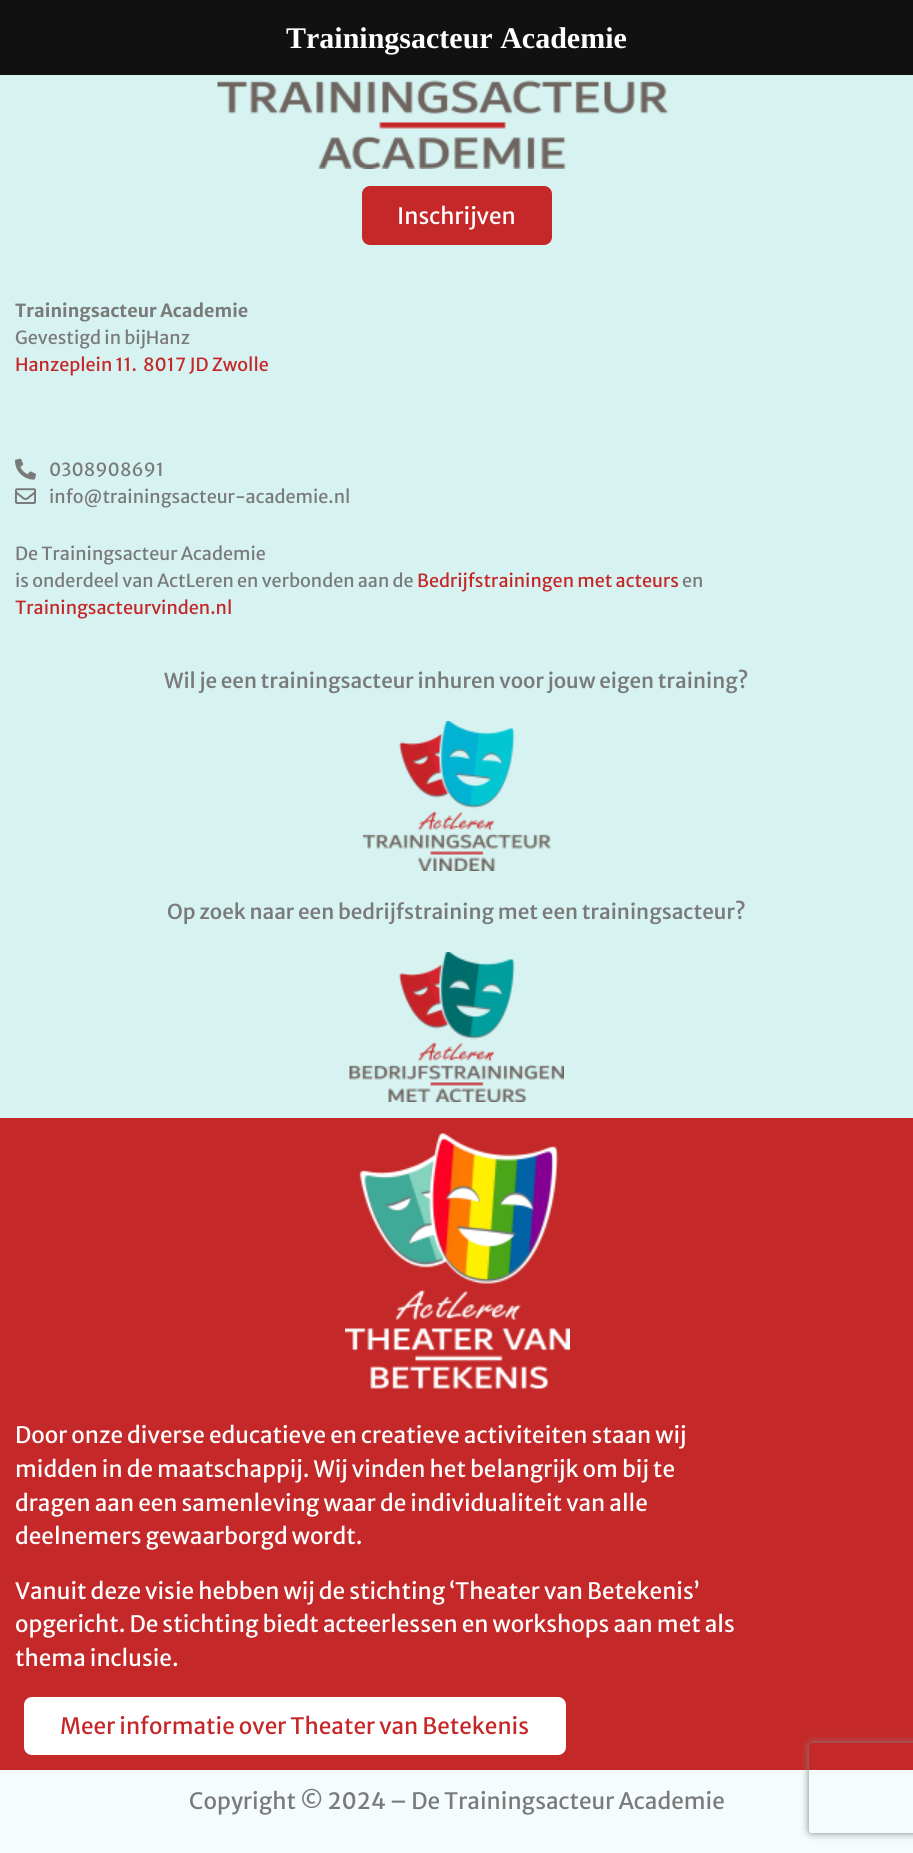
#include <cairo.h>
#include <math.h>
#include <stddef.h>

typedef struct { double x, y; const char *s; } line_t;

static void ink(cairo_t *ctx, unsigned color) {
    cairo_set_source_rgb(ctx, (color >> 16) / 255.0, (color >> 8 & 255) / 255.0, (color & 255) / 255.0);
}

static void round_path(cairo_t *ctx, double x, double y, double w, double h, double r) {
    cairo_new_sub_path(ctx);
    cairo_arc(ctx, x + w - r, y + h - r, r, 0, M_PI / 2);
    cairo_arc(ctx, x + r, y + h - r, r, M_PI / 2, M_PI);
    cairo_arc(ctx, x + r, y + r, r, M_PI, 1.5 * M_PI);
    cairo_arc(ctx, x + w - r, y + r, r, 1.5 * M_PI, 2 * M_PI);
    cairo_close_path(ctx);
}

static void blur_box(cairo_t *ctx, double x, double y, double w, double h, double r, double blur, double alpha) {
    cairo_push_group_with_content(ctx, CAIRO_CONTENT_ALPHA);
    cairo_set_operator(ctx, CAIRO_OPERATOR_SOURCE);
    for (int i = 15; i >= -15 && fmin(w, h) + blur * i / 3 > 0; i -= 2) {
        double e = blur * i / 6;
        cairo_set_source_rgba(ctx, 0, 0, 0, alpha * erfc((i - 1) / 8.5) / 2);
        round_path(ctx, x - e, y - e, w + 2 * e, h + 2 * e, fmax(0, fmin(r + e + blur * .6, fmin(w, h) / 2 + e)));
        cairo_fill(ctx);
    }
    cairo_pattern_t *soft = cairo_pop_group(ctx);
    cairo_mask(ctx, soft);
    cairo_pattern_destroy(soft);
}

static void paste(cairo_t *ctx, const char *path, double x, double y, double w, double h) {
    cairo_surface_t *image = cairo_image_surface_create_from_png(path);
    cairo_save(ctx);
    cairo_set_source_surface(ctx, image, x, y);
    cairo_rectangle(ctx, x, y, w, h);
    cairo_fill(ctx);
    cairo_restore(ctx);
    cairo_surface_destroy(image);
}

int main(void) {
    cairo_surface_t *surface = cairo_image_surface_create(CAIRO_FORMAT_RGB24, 913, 1853);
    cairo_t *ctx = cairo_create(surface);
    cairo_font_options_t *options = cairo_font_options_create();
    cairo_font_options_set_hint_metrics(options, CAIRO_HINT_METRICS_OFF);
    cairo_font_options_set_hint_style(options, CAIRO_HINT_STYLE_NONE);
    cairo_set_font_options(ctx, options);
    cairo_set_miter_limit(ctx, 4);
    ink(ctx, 0xF5FCFD);
    cairo_paint(ctx);
    ink(ctx, 0x111111);
    cairo_rectangle(ctx, 0, 0, 913, 75);
    cairo_fill(ctx);
    cairo_select_font_face(ctx, "Liberation Serif", CAIRO_FONT_SLANT_NORMAL, CAIRO_FONT_WEIGHT_BOLD);
    cairo_set_font_size(ctx, 30);
    ink(ctx, 0xFFFFFF);
    cairo_move_to(ctx, 286, 48);
    cairo_show_text(ctx, "Trainingsacteur Academie");
    ink(ctx, 0xD6F3F1);
    cairo_rectangle(ctx, 0, 75, 913, 1043);
    cairo_fill(ctx);
    paste(ctx, "media/1.png", 217, 80, 451, 89);
    ink(ctx, 0xC52828);
    round_path(ctx, 362, 186, 190, 59, 8);
    cairo_fill(ctx);
    cairo_select_font_face(ctx, "Merriweather Sans", CAIRO_FONT_SLANT_NORMAL, CAIRO_FONT_WEIGHT_NORMAL);
    cairo_set_font_size(ctx, 22.5);
    ink(ctx, 0xFFFFFF);
    cairo_move_to(ctx, 397, 224);
    cairo_show_text(ctx, "Inschrijven");
    cairo_select_font_face(ctx, "Merriweather Sans", CAIRO_FONT_SLANT_NORMAL, CAIRO_FONT_WEIGHT_BOLD);
    cairo_set_font_size(ctx, 18);
    ink(ctx, 0x7A7A7A);
    cairo_move_to(ctx, 15, 317);
    cairo_show_text(ctx, "Trainingsacteur Academie");
    cairo_select_font_face(ctx, "Merriweather Sans", CAIRO_FONT_SLANT_NORMAL, CAIRO_FONT_WEIGHT_NORMAL);
    cairo_move_to(ctx, 15, 344);
    cairo_show_text(ctx, "Gevestigd in bijHanz");
    ink(ctx, 0xC52728);
    cairo_move_to(ctx, 15, 371);
    cairo_show_text(ctx, "Hanzeplein 11.");
    cairo_move_to(ctx, 143, 371);
    cairo_show_text(ctx, "8017 JD Zwolle");
    paste(ctx, "media/2.png", 15, 458, 21, 22);
    ink(ctx, 0x7A7A7A);
    cairo_move_to(ctx, 49, 476);
    cairo_show_text(ctx, "0308908691");
    paste(ctx, "media/3.png", 15, 488, 21, 16);
    {
        static const line_t items[] = {
            {49, 503, "info@trainingsacteur-academie.nl"},
            {15, 560, "De Trainingsacteur Academie"},
            {15, 587, "is onderdeel van ActLeren en verbonden aan de"},
        };
        for (size_t i = 0; i < sizeof items / sizeof *items; i++) {
            cairo_move_to(ctx, items[i].x, items[i].y);
            cairo_show_text(ctx, items[i].s);
        }
    }
    ink(ctx, 0xC52728);
    cairo_move_to(ctx, 417, 587);
    cairo_show_text(ctx, "Bedrijfstrainingen met acteurs");
    ink(ctx, 0x7A7A7A);
    cairo_move_to(ctx, 682, 587);
    cairo_show_text(ctx, "en");
    ink(ctx, 0xC52728);
    cairo_move_to(ctx, 15, 614);
    cairo_show_text(ctx, "Trainingsacteurvinden.nl");
    cairo_select_font_face(ctx, "Merriweather Sans Medium", CAIRO_FONT_SLANT_NORMAL, CAIRO_FONT_WEIGHT_NORMAL);
    cairo_set_font_size(ctx, 20.5);
    ink(ctx, 0x7A7A7A);
    cairo_move_to(ctx, 164, 688);
    cairo_show_text(ctx, "Wil je een trainingsacteur inhuren voor jouw eigen training?");
    paste(ctx, "media/4.png", 363, 721, 188, 150);
    cairo_move_to(ctx, 167, 919);
    cairo_show_text(ctx, "Op zoek naar een bedrijfstraining met een trainingsacteur?");
    paste(ctx, "media/5.png", 349, 952, 215, 150);
    ink(ctx, 0xC52828);
    cairo_rectangle(ctx, 0, 1118, 913, 652);
    cairo_fill(ctx);
    paste(ctx, "media/6.png", 345, 1133, 225, 256);
    cairo_select_font_face(ctx, "Merriweather Sans", CAIRO_FONT_SLANT_NORMAL, CAIRO_FONT_WEIGHT_NORMAL);
    cairo_set_font_size(ctx, 22.5);
    ink(ctx, 0xFFFFFF);
    {
        static const line_t items[] = {
            {15, 1443, "Door onze diverse educatieve en creatieve activiteiten staan wij"},
            {15, 1477, "midden in de maatschappij. Wij vinden het belangrijk om bij te"},
            {15, 1511, "dragen aan een samenleving waar de individualiteit van alle"},
            {15, 1544, "deelnemers gewaarborgd wordt."},
            {15, 1599, "Vanuit deze visie hebben wij de stichting ‘Theater van Betekenis’"},
            {15, 1632, "opgericht. De stichting biedt acteerlessen en workshops aan met als"},
            {15, 1666, "thema inclusie."},
        };
        for (size_t i = 0; i < sizeof items / sizeof *items; i++) {
            cairo_move_to(ctx, items[i].x, items[i].y);
            cairo_show_text(ctx, items[i].s);
        }
    }
    round_path(ctx, 24, 1697, 542, 58, 8);
    cairo_fill(ctx);
    ink(ctx, 0xC52728);
    cairo_move_to(ctx, 60, 1734);
    cairo_show_text(ctx, "Meer informatie over Theater van Betekenis");
    ink(ctx, 0x7A7A7A);
    cairo_move_to(ctx, 189, 1809);
    cairo_show_text(ctx, "Copyright © 2024 – De Trainingsacteur Academie");
    cairo_save(ctx);
    cairo_set_fill_rule(ctx, CAIRO_FILL_RULE_EVEN_ODD);
    cairo_new_path(ctx);
    cairo_move_to(ctx, 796, 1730);
    cairo_line_to(ctx, 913, 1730);
    cairo_line_to(ctx, 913, 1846);
    cairo_line_to(ctx, 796, 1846);
    cairo_close_path(ctx);
    cairo_move_to(ctx, 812, 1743);
    cairo_line_to(ctx, 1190, 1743);
    cairo_curve_to(ctx, 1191.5, 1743, 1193, 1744.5, 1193, 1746);
    cairo_line_to(ctx, 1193, 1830);
    cairo_curve_to(ctx, 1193, 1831.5, 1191.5, 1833, 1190, 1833);
    cairo_line_to(ctx, 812, 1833);
    cairo_curve_to(ctx, 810.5, 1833, 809, 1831.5, 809, 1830);
    cairo_line_to(ctx, 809, 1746);
    cairo_curve_to(ctx, 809, 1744.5, 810.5, 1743, 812, 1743);
    cairo_close_path(ctx);
    cairo_clip(ctx);
    ink(ctx, 0x808080);
    blur_box(ctx, 809, 1743, 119, 90, 3, 4, 1);
    cairo_restore(ctx);
    cairo_surface_write_to_png(surface, "image.png");
    cairo_font_options_destroy(options);
    cairo_destroy(ctx);
    cairo_surface_destroy(surface);
    return 0;
}
